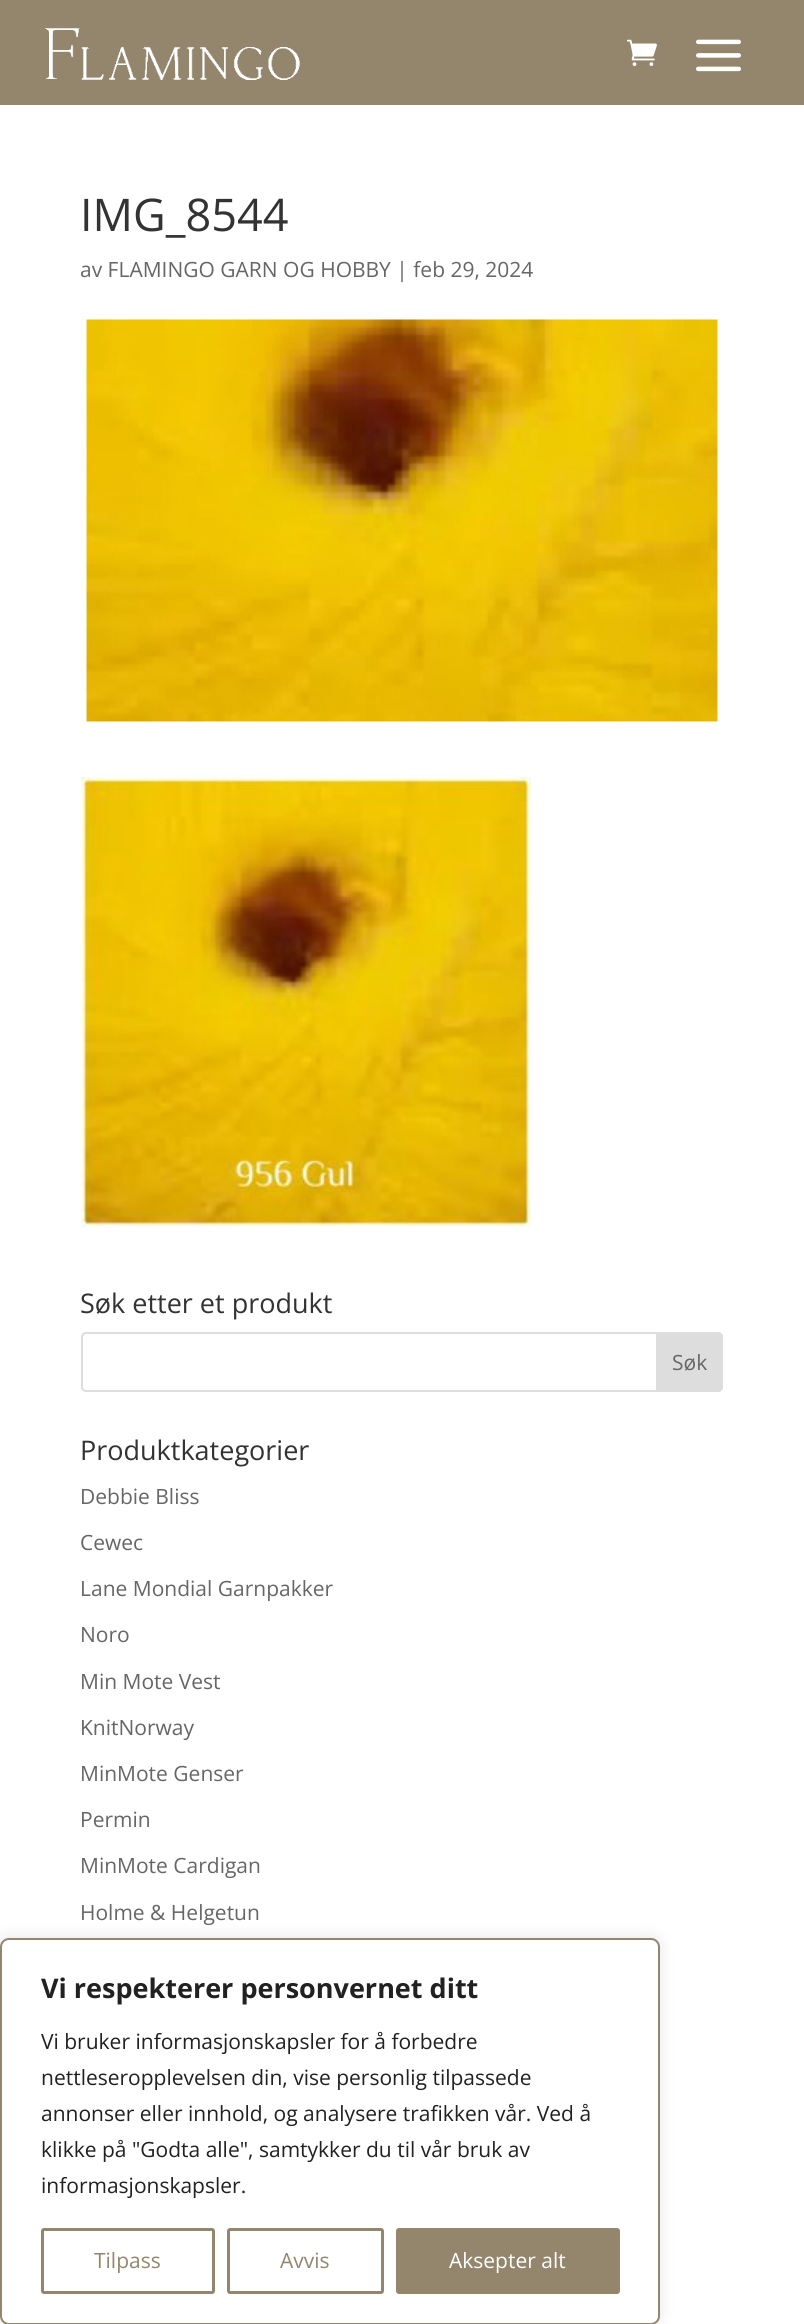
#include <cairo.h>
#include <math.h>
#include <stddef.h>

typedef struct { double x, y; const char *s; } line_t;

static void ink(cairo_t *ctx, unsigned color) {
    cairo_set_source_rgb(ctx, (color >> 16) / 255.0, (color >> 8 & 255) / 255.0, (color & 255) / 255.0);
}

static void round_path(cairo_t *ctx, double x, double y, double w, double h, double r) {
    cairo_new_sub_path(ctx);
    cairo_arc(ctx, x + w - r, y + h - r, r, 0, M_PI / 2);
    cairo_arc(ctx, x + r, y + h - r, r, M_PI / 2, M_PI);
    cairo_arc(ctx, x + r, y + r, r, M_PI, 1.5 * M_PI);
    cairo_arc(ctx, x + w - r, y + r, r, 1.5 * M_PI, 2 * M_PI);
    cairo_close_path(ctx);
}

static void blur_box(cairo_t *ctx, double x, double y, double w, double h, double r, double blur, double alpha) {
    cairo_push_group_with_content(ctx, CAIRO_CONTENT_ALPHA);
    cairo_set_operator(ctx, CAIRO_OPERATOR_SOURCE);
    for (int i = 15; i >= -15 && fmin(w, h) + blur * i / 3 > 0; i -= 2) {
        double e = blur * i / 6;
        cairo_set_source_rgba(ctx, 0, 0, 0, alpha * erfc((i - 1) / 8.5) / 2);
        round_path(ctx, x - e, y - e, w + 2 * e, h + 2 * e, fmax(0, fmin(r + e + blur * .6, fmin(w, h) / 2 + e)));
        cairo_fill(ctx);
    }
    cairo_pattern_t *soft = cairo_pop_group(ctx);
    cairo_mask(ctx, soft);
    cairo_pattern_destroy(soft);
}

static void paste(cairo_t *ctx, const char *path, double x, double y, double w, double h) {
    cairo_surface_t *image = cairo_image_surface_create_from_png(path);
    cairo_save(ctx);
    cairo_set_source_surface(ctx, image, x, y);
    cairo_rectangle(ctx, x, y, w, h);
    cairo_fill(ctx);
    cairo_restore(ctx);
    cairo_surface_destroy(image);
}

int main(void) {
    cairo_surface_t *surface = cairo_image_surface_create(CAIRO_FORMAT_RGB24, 804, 2324);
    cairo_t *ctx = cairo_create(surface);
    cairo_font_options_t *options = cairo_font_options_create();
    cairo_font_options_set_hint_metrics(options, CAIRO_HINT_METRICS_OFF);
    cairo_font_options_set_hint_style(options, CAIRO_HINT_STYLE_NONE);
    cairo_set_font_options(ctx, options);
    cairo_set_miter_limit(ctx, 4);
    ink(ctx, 0xFFFFFF);
    cairo_paint(ctx);
    ink(ctx, 0x93866D);
    cairo_rectangle(ctx, 0, 0, 804, 105);
    cairo_fill(ctx);
    paste(ctx, "media/1.png", 45, 28, 255, 52);
    paste(ctx, "media/2.png", 627, 39, 30, 27);
    paste(ctx, "media/3.png", 696, 39, 45, 33);
    cairo_select_font_face(ctx, "Open Sans", CAIRO_FONT_SLANT_NORMAL, CAIRO_FONT_WEIGHT_NORMAL);
    cairo_set_font_size(ctx, 45);
    ink(ctx, 0x333333);
    cairo_move_to(ctx, 80, 231);
    cairo_show_text(ctx, "IMG_8544");
    cairo_set_font_size(ctx, 21);
    ink(ctx, 0x666666);
    cairo_move_to(ctx, 80, 277);
    cairo_show_text(ctx, "av FLAMINGO GARN OG HOBBY | feb 29, 2024");
    paste(ctx, "media/4.png", 81, 319, 638, 403);
    paste(ctx, "media/5.png", 81, 777, 450, 450);
    cairo_set_font_size(ctx, 27);
    ink(ctx, 0x333333);
    cairo_move_to(ctx, 80, 1313);
    cairo_show_text(ctx, "Søk etter et produkt");
    round_path(ctx, 82, 1333, 640, 58, 4);
    ink(ctx, 0xDDDDDD);
    cairo_stroke(ctx);
    cairo_new_path(ctx);
    cairo_move_to(ctx, 657, 1333);
    cairo_line_to(ctx, 718, 1333);
    cairo_curve_to(ctx, 720, 1333, 722, 1335, 722, 1337);
    cairo_line_to(ctx, 722, 1387);
    cairo_curve_to(ctx, 722, 1389, 720, 1391, 718, 1391);
    cairo_line_to(ctx, 657, 1391);
    cairo_close_path(ctx);
    cairo_fill_preserve(ctx);
    cairo_stroke(ctx);
    cairo_set_font_size(ctx, 21);
    ink(ctx, 0x666666);
    cairo_move_to(ctx, 672, 1370);
    cairo_show_text(ctx, "Søk");
    cairo_set_font_size(ctx, 27);
    ink(ctx, 0x333333);
    cairo_move_to(ctx, 80, 1460);
    cairo_show_text(ctx, "Produktkategorier");
    cairo_set_font_size(ctx, 21);
    ink(ctx, 0x666666);
    {
        static const line_t items[] = {
            {80, 1504, "Debbie Bliss"},
            {80, 1550, "Cewec"},
            {80, 1596, "Lane Mondial Garnpakker"},
            {80, 1642, "Noro"},
            {80, 1689, "Min Mote Vest"},
            {80, 1735, "KnitNorway"},
            {80, 1781, "MinMote Genser"},
            {80, 1827, "Permin"},
            {80, 1873, "MinMote Cardigan"},
            {80, 1920, "Holme & Helgetun"},
        };
        for (size_t i = 0; i < sizeof items / sizeof *items; i++) {
            cairo_move_to(ctx, items[i].x, items[i].y);
            cairo_show_text(ctx, items[i].s);
        }
    }
    ink(ctx, 0xACABAB);
    blur_box(ctx, 0, 1937, 660, 387, 9, 7.5, 0.3);
    ink(ctx, 0xFFFFFF);
    round_path(ctx, 1, 1939, 658, 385, 8);
    cairo_fill_preserve(ctx);
    ink(ctx, 0x93866D);
    cairo_stroke(ctx);
    cairo_select_font_face(ctx, "Open Sans", CAIRO_FONT_SLANT_NORMAL, CAIRO_FONT_WEIGHT_BOLD);
    cairo_set_font_size(ctx, 27);
    ink(ctx, 0x212121);
    cairo_move_to(ctx, 41, 1998);
    cairo_show_text(ctx, "Vi respekterer personvernet ditt");
    cairo_select_font_face(ctx, "Open Sans", CAIRO_FONT_SLANT_NORMAL, CAIRO_FONT_WEIGHT_NORMAL);
    cairo_set_font_size(ctx, 21);
    {
        static const line_t items[] = {
            {41, 2049, "Vi bruker informasjonskapsler for å forbedre"},
            {41, 2085, "nettleseropplevelsen din, vise personlig tilpassede"},
            {41, 2121, "annonser eller innhold, og analysere trafikken vår. Ved å"},
            {41, 2157, "klikke på \"Godta alle\", samtykker du til vår bruk av"},
            {41, 2193, "informasjonskapsler."},
        };
        for (size_t i = 0; i < sizeof items / sizeof *items; i++) {
            cairo_move_to(ctx, items[i].x, items[i].y);
            cairo_show_text(ctx, items[i].s);
        }
    }
    round_path(ctx, 42.5, 2229.5, 171, 63, 1.5);
    ink(ctx, 0x93866D);
    cairo_set_line_width(ctx, 3);
    cairo_stroke(ctx);
    cairo_move_to(ctx, 94, 2268);
    cairo_show_text(ctx, "Tilpass");
    round_path(ctx, 228.5, 2229.5, 154, 63, 1.5);
    cairo_stroke(ctx);
    cairo_move_to(ctx, 280, 2268);
    cairo_show_text(ctx, "Avvis");
    round_path(ctx, 397.5, 2229.5, 221, 63, 1.5);
    cairo_fill_preserve(ctx);
    cairo_stroke(ctx);
    ink(ctx, 0xFFFFFF);
    cairo_move_to(ctx, 449, 2268);
    cairo_show_text(ctx, "Aksepter alt");
    cairo_surface_write_to_png(surface, "image.png");
    cairo_font_options_destroy(options);
    cairo_destroy(ctx);
    cairo_surface_destroy(surface);
    return 0;
}
